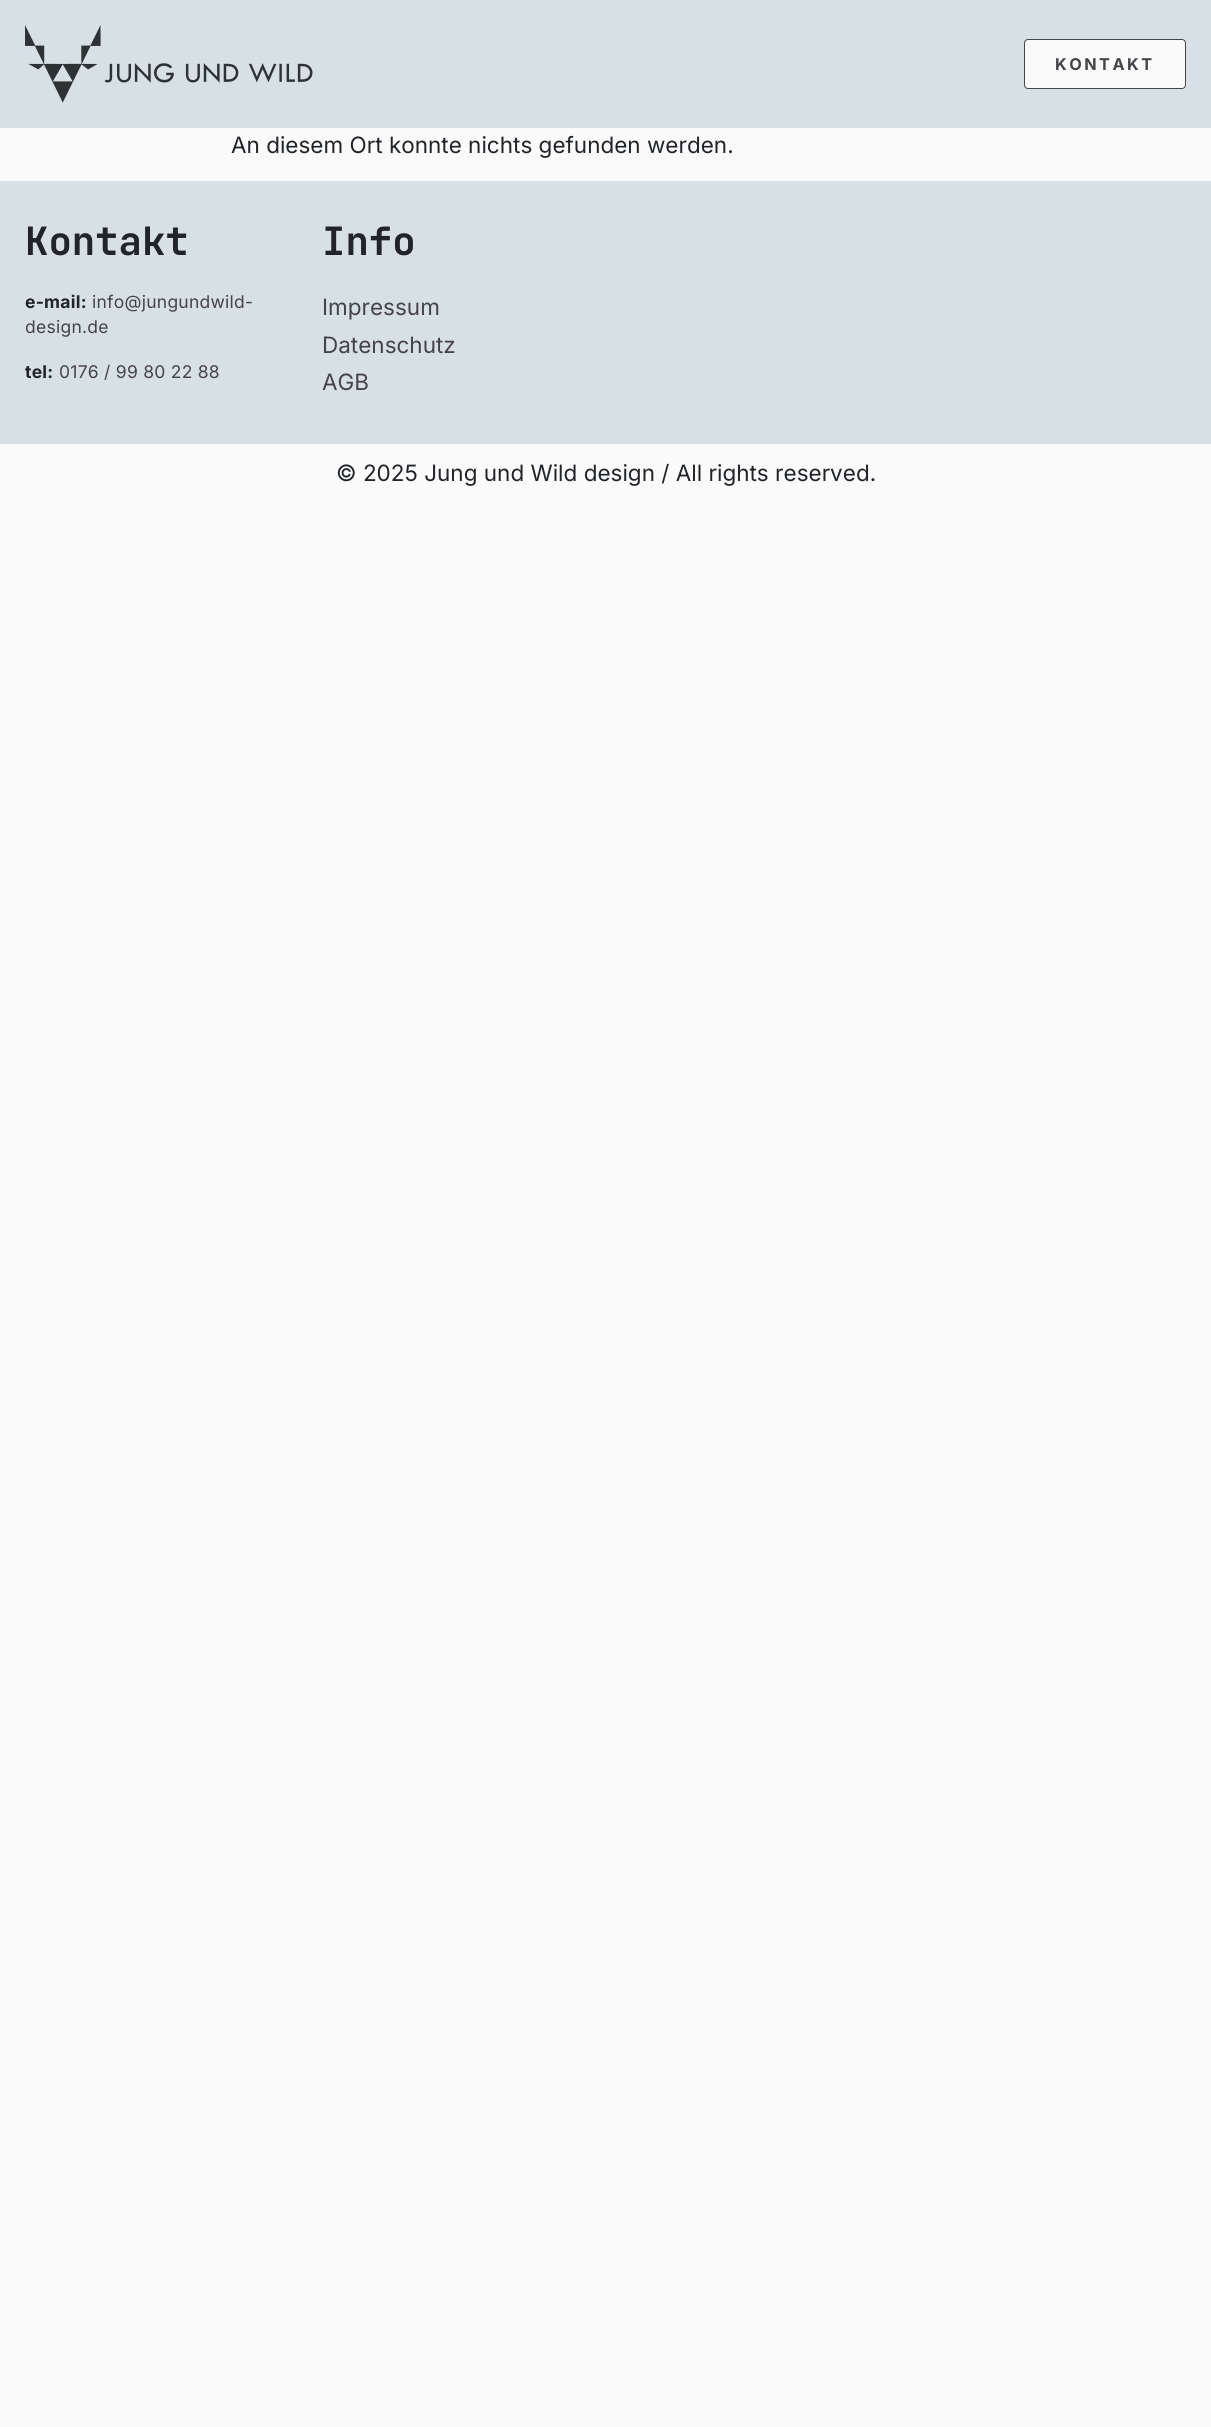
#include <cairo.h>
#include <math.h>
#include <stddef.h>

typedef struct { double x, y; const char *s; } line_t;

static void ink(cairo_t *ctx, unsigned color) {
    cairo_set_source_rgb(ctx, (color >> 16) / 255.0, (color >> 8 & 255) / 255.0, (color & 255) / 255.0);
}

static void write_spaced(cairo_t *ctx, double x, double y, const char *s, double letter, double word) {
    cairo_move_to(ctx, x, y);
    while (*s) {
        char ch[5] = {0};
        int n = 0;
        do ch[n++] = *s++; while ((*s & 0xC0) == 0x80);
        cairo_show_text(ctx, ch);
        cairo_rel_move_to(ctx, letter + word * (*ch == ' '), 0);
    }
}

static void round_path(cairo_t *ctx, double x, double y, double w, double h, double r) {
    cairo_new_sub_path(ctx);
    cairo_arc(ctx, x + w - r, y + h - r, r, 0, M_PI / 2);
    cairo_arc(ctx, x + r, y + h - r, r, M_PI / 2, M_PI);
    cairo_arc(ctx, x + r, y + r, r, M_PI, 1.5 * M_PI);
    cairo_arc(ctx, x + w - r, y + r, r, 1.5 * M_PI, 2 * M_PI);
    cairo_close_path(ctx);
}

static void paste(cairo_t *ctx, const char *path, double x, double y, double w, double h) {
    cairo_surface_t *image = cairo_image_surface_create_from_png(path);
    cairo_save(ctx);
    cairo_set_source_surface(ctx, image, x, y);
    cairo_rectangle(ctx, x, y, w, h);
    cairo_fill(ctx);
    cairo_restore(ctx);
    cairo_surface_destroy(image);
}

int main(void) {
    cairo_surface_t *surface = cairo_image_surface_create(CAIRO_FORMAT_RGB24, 1211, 2427);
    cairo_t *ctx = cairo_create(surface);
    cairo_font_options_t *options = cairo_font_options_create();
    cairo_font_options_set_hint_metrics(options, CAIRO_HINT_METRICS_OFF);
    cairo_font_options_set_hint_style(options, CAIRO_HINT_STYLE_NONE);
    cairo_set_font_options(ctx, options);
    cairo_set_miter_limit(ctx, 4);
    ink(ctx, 0xFAFAFA);
    cairo_paint(ctx);
    ink(ctx, 0xD6E0E5);
    cairo_rectangle(ctx, 0, 0, 1211, 128);
    cairo_fill(ctx);
    paste(ctx, "media/1.png", 25, 25, 288, 78);
    ink(ctx, 0xFAFAFA);
    round_path(ctx, 1024.5, 39.5, 161, 49, 3.5);
    cairo_fill_preserve(ctx);
    ink(ctx, 0x454449);
    cairo_set_line_width(ctx, 1);
    cairo_stroke(ctx);
    cairo_select_font_face(ctx, "Inter", CAIRO_FONT_SLANT_NORMAL, CAIRO_FONT_WEIGHT_BOLD);
    cairo_set_font_size(ctx, 16.25);
    write_spaced(ctx, 1055, 70, "KONTAKT", 2.5, 0);
    cairo_select_font_face(ctx, "Inter", CAIRO_FONT_SLANT_NORMAL, CAIRO_FONT_WEIGHT_NORMAL);
    cairo_set_font_size(ctx, 22.5);
    ink(ctx, 0x212529);
    cairo_move_to(ctx, 231, 153);
    cairo_show_text(ctx, "An diesem Ort konnte nichts gefunden werden.");
    ink(ctx, 0xD6E0E5);
    cairo_rectangle(ctx, 0, 181, 1211, 263);
    cairo_fill(ctx);
    cairo_select_font_face(ctx, "JetBrains Mono", CAIRO_FONT_SLANT_NORMAL, CAIRO_FONT_WEIGHT_BOLD);
    cairo_set_font_size(ctx, 39);
    ink(ctx, 0x212529);
    cairo_move_to(ctx, 25, 255);
    cairo_show_text(ctx, "Kontakt");
    cairo_select_font_face(ctx, "Inter", CAIRO_FONT_SLANT_NORMAL, CAIRO_FONT_WEIGHT_BOLD);
    cairo_set_font_size(ctx, 17.5);
    write_spaced(ctx, 25, 308, "e-mail:", 0.25, 0);
    cairo_select_font_face(ctx, "Inter", CAIRO_FONT_SLANT_NORMAL, CAIRO_FONT_WEIGHT_NORMAL);
    ink(ctx, 0x454449);
    write_spaced(ctx, 92, 308, "info@jungundwild-", 0.25, 0);
    write_spaced(ctx, 25, 333, "design.de", 0.25, 0);
    cairo_select_font_face(ctx, "Inter", CAIRO_FONT_SLANT_NORMAL, CAIRO_FONT_WEIGHT_BOLD);
    ink(ctx, 0x212529);
    write_spaced(ctx, 25, 378, "tel:", 0.25, 0);
    cairo_select_font_face(ctx, "Inter", CAIRO_FONT_SLANT_NORMAL, CAIRO_FONT_WEIGHT_NORMAL);
    ink(ctx, 0x454449);
    write_spaced(ctx, 59, 378, "0176 / 99 80 22 88", 0.25, 0);
    cairo_select_font_face(ctx, "JetBrains Mono", CAIRO_FONT_SLANT_NORMAL, CAIRO_FONT_WEIGHT_BOLD);
    cairo_set_font_size(ctx, 39);
    ink(ctx, 0x212529);
    cairo_move_to(ctx, 322, 255);
    cairo_show_text(ctx, "Info");
    cairo_select_font_face(ctx, "Inter", CAIRO_FONT_SLANT_NORMAL, CAIRO_FONT_WEIGHT_NORMAL);
    cairo_set_font_size(ctx, 22.5);
    ink(ctx, 0x454449);
    {
        static const line_t items[] = {
            {322, 315, "Impressum"},
            {322, 353, "Datenschutz"},
            {322, 390, "AGB"},
        };
        for (size_t i = 0; i < sizeof items / sizeof *items; i++) {
            cairo_move_to(ctx, items[i].x, items[i].y);
            cairo_show_text(ctx, items[i].s);
        }
    }
    ink(ctx, 0x212529);
    cairo_move_to(ctx, 336, 481);
    cairo_show_text(ctx, "© 2025 Jung und Wild design / All rights reserved.");
    cairo_surface_write_to_png(surface, "image.png");
    cairo_font_options_destroy(options);
    cairo_destroy(ctx);
    cairo_surface_destroy(surface);
    return 0;
}
